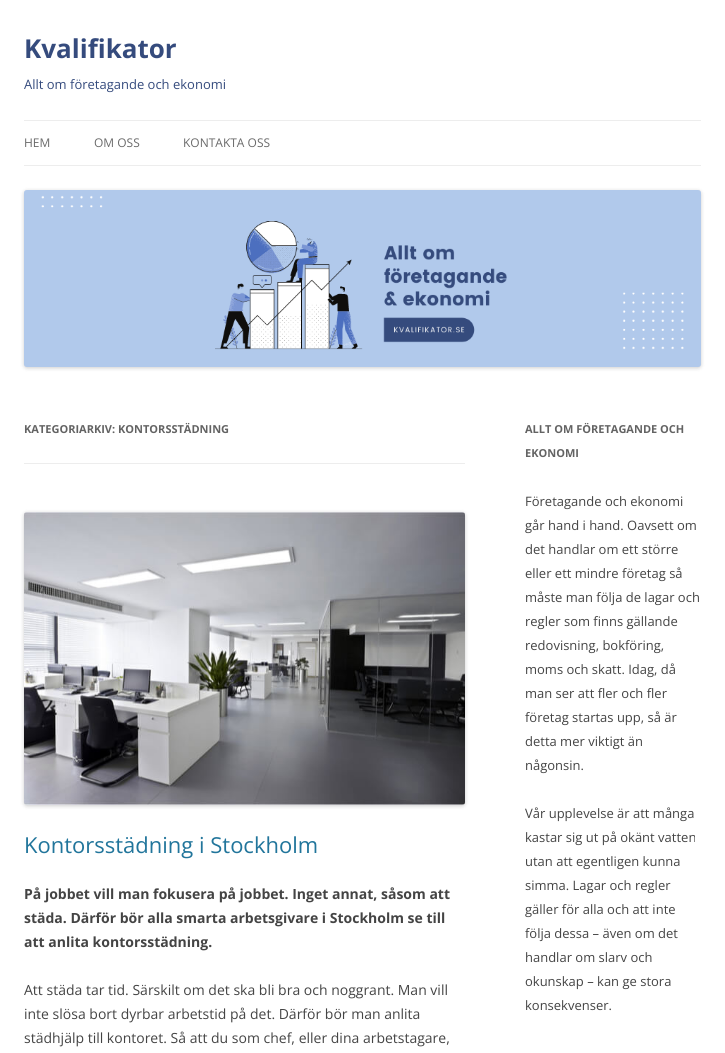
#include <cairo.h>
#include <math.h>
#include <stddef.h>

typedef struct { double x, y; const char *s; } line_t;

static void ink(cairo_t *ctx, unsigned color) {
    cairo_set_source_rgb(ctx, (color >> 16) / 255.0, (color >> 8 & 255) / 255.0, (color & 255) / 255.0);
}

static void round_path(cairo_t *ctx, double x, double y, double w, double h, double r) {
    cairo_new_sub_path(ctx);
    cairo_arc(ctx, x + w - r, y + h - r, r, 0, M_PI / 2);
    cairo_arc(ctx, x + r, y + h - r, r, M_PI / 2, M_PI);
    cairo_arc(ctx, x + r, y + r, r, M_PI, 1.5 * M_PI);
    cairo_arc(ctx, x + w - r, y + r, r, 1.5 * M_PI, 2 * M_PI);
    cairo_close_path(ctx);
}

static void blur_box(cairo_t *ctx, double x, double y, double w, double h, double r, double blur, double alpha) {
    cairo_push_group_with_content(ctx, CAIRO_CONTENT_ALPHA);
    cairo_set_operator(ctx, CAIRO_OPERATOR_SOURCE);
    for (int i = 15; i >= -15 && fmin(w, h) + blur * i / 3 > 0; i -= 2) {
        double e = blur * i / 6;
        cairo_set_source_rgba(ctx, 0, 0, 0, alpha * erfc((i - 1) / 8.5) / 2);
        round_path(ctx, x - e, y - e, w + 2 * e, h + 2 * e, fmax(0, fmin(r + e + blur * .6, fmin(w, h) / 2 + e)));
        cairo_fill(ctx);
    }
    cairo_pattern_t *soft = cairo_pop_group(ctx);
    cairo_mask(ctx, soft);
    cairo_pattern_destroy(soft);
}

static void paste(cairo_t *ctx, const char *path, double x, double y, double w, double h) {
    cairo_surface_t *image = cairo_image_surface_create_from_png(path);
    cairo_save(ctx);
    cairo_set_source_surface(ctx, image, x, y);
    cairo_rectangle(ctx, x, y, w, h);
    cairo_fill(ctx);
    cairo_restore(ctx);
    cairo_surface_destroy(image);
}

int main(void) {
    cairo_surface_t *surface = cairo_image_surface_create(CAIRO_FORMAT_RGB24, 725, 1053);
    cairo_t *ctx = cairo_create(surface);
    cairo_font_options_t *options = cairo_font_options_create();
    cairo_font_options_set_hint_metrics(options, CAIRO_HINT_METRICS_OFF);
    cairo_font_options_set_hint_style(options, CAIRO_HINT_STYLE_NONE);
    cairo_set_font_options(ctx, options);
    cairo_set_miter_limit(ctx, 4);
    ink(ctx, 0xFFFFFF);
    cairo_paint(ctx);
    cairo_select_font_face(ctx, "Open Sans", CAIRO_FONT_SLANT_NORMAL, CAIRO_FONT_WEIGHT_BOLD);
    cairo_set_font_size(ctx, 26);
    ink(ctx, 0x354B7D);
    cairo_move_to(ctx, 24, 58);
    cairo_show_text(ctx, "Kvalifikator");
    cairo_select_font_face(ctx, "Open Sans", CAIRO_FONT_SLANT_NORMAL, CAIRO_FONT_WEIGHT_NORMAL);
    cairo_set_font_size(ctx, 13);
    cairo_move_to(ctx, 24, 89);
    cairo_show_text(ctx, "Allt om företagande och ekonomi");
    ink(ctx, 0xEDEDED);
    cairo_rectangle(ctx, 24, 120, 677, 1);
    cairo_fill(ctx);
    cairo_rectangle(ctx, 24, 165, 677, 1);
    cairo_fill(ctx);
    cairo_set_font_size(ctx, 12);
    ink(ctx, 0x6A6A6A);
    {
        static const line_t items[] = {
            {24, 147, "HEM"},
            {94, 147, "OM OSS"},
            {183, 147, "KONTAKTA OSS"},
        };
        for (size_t i = 0; i < sizeof items / sizeof *items; i++) {
            cairo_move_to(ctx, items[i].x, items[i].y);
            cairo_show_text(ctx, items[i].s);
        }
    }
    ink(ctx, 0x000000);
    blur_box(ctx, 24, 191, 677, 177, 3, 2, 0.2);
    paste(ctx, "media/1.png", 24, 190, 677, 177);
    ink(ctx, 0xEDEDED);
    cairo_rectangle(ctx, 24, 463, 441, 1);
    cairo_fill(ctx);
    cairo_select_font_face(ctx, "Open Sans", CAIRO_FONT_SLANT_NORMAL, CAIRO_FONT_WEIGHT_BOLD);
    cairo_set_font_size(ctx, 11);
    ink(ctx, 0x636363);
    cairo_move_to(ctx, 24, 433);
    cairo_show_text(ctx, "KATEGORIARKIV: KONTORSSTÄDNING");
    ink(ctx, 0x000000);
    blur_box(ctx, 24, 513, 441, 293, 3, 2, 0.2);
    paste(ctx, "media/2.png", 24, 512, 441, 293);
    cairo_select_font_face(ctx, "Open Sans", CAIRO_FONT_SLANT_NORMAL, CAIRO_FONT_WEIGHT_NORMAL);
    cairo_set_font_size(ctx, 22);
    ink(ctx, 0x21759B);
    cairo_move_to(ctx, 24, 853);
    cairo_show_text(ctx, "Kontorsstädning i Stockholm");
    cairo_select_font_face(ctx, "Open Sans", CAIRO_FONT_SLANT_NORMAL, CAIRO_FONT_WEIGHT_BOLD);
    cairo_set_font_size(ctx, 14);
    ink(ctx, 0x444444);
    {
        static const line_t items[] = {
            {24, 899, "På jobbet vill man fokusera på jobbet. Inget annat, såsom att"},
            {24, 923, "städa. Därför bör alla smarta arbetsgivare i Stockholm se till"},
            {24, 947, "att anlita kontorsstädning."},
        };
        for (size_t i = 0; i < sizeof items / sizeof *items; i++) {
            cairo_move_to(ctx, items[i].x, items[i].y);
            cairo_show_text(ctx, items[i].s);
        }
    }
    cairo_select_font_face(ctx, "Open Sans", CAIRO_FONT_SLANT_NORMAL, CAIRO_FONT_WEIGHT_NORMAL);
    {
        static const line_t items[] = {
            {24, 995, "Att städa tar tid. Särskilt om det ska bli bra och noggrant. Man vill"},
            {24, 1019, "inte slösa bort dyrbar arbetstid på det. Därför bör man anlita"},
            {24, 1043, "städhjälp till kontoret. Så att du som chef, eller dina arbetstagare,"},
        };
        for (size_t i = 0; i < sizeof items / sizeof *items; i++) {
            cairo_move_to(ctx, items[i].x, items[i].y);
            cairo_show_text(ctx, items[i].s);
        }
    }
    cairo_select_font_face(ctx, "Open Sans", CAIRO_FONT_SLANT_NORMAL, CAIRO_FONT_WEIGHT_BOLD);
    cairo_set_font_size(ctx, 11);
    ink(ctx, 0x636363);
    cairo_move_to(ctx, 525, 433);
    cairo_show_text(ctx, "ALLT OM FÖRETAGANDE OCH");
    cairo_move_to(ctx, 525, 457);
    cairo_show_text(ctx, "EKONOMI");
    cairo_select_font_face(ctx, "Open Sans", CAIRO_FONT_SLANT_NORMAL, CAIRO_FONT_WEIGHT_NORMAL);
    cairo_set_font_size(ctx, 13);
    ink(ctx, 0x444444);
    {
        static const line_t items[] = {
            {525, 506, "Företagande och ekonomi"},
            {525, 530, "går hand i hand. Oavsett om"},
            {525, 554, "det handlar om ett större"},
            {525, 578, "eller ett mindre företag så"},
            {525, 602, "måste man följa de lagar och"},
            {525, 626, "regler som finns gällande"},
            {525, 650, "redovisning, bokföring,"},
            {525, 674, "moms och skatt. Idag, då"},
            {525, 698, "man ser att fler och fler"},
            {525, 722, "företag startas upp, så är"},
            {525, 746, "detta mer viktigt än"},
            {525, 770, "någonsin."},
            {525, 818, "Vår upplevelse är att många"},
            {525, 842, "kastar sig ut på okänt vatten"},
            {525, 866, "utan att egentligen kunna"},
            {525, 890, "simma. Lagar och regler"},
            {525, 914, "gäller för alla och att inte"},
            {525, 938, "följa dessa – även om det"},
            {525, 962, "handlar om slarv och"},
            {525, 986, "okunskap – kan ge stora"},
            {525, 1010, "konsekvenser."},
        };
        for (size_t i = 0; i < sizeof items / sizeof *items; i++) {
            cairo_move_to(ctx, items[i].x, items[i].y);
            cairo_show_text(ctx, items[i].s);
        }
    }
    cairo_surface_write_to_png(surface, "image.png");
    cairo_font_options_destroy(options);
    cairo_destroy(ctx);
    cairo_surface_destroy(surface);
    return 0;
}
